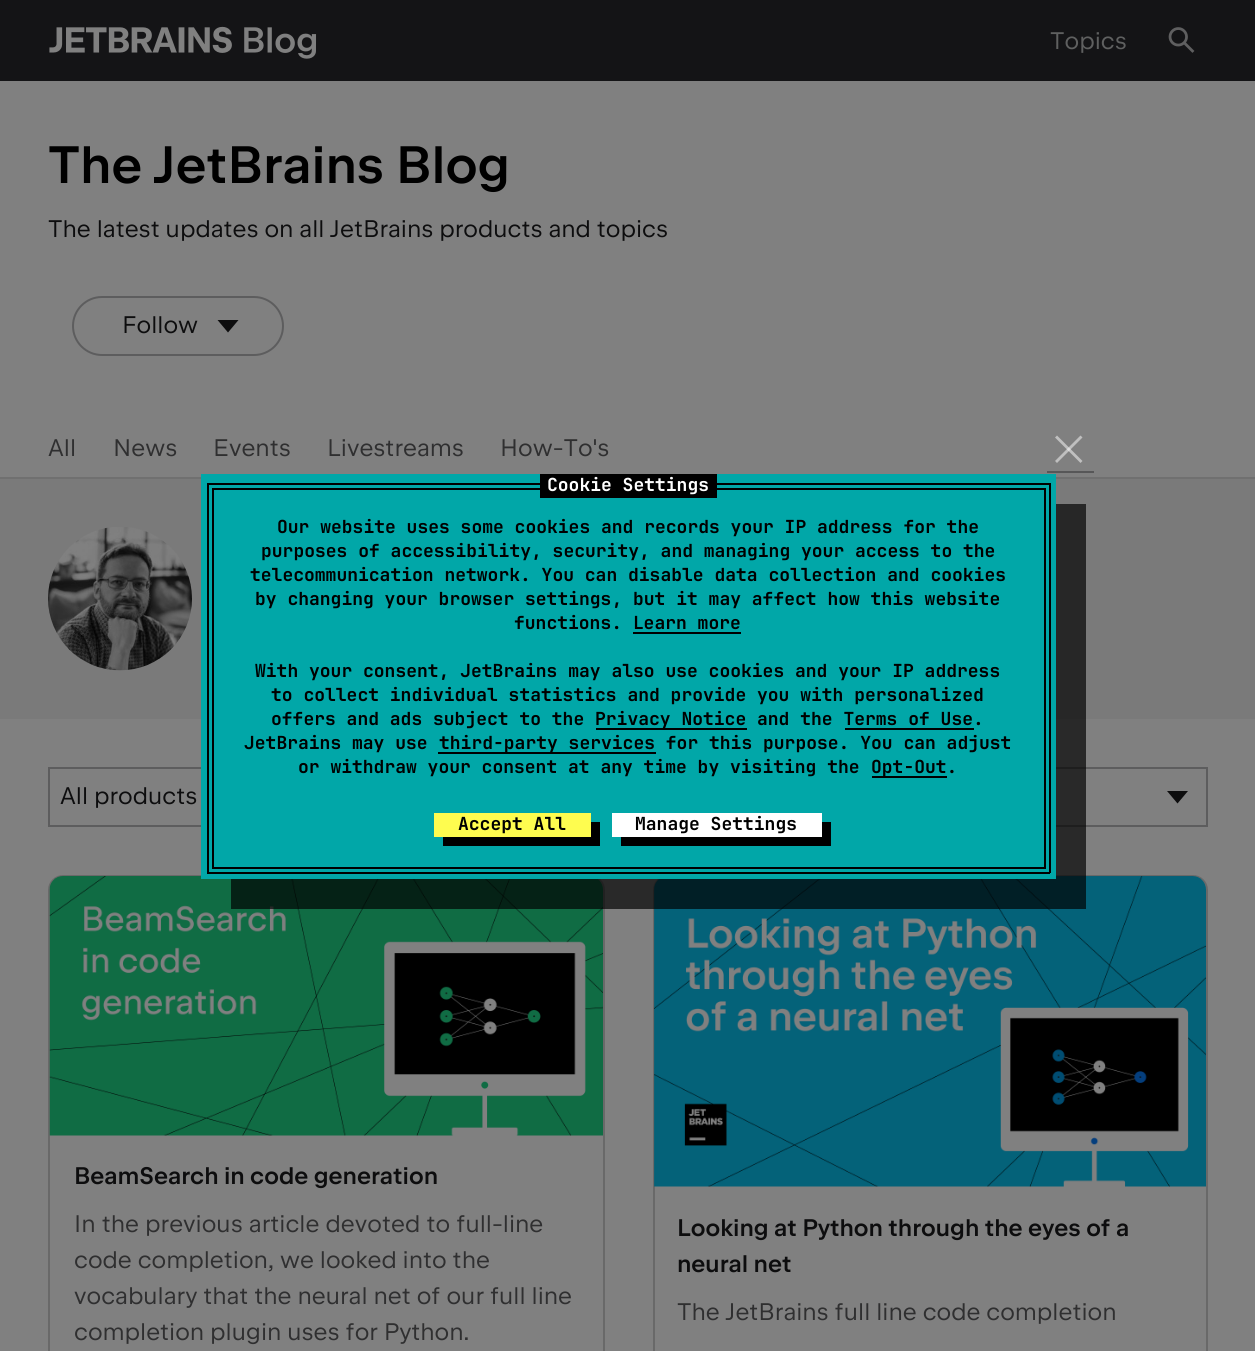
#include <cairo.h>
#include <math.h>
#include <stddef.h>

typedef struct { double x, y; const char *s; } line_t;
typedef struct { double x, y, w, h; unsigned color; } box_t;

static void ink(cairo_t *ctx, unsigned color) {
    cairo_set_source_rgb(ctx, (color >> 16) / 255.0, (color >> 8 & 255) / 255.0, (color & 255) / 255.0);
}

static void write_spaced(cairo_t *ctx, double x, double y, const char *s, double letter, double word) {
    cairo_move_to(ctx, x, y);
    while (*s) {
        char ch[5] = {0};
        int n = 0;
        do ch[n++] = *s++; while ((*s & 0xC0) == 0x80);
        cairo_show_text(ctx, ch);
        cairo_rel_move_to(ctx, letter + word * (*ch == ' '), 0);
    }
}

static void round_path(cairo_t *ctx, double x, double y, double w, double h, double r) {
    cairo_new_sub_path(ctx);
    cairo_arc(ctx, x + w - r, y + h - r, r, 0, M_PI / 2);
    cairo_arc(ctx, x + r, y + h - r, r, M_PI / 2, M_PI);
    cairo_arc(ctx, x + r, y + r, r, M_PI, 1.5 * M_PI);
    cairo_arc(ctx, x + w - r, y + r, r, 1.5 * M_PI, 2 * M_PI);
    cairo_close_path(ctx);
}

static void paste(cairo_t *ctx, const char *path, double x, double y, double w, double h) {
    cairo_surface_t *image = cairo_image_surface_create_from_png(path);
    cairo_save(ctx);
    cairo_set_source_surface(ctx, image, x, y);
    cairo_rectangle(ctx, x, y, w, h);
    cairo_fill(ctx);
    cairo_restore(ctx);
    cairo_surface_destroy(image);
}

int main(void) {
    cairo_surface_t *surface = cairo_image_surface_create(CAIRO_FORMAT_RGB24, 1255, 1351);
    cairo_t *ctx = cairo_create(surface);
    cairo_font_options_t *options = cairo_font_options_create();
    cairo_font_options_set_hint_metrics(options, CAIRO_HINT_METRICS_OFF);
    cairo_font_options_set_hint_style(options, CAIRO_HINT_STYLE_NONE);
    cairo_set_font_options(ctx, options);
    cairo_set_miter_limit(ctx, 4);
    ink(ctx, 0x808080);
    cairo_paint(ctx);
    ink(ctx, 0x141416);
    cairo_rectangle(ctx, 0, 0, 1255, 81);
    cairo_fill(ctx);
    paste(ctx, "media/1.png", 49, 26, 268, 33);
    cairo_select_font_face(ctx, "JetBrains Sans", CAIRO_FONT_SLANT_NORMAL, CAIRO_FONT_WEIGHT_NORMAL);
    cairo_set_font_size(ctx, 24);
    ink(ctx, 0x5F6060);
    cairo_move_to(ctx, 1050, 49);
    cairo_show_text(ctx, "Topics");
    paste(ctx, "media/2.png", 1168, 27, 27, 26);
    cairo_select_font_face(ctx, "JetBrains Sans SemiBold", CAIRO_FONT_SLANT_NORMAL, CAIRO_FONT_WEIGHT_NORMAL);
    cairo_set_font_size(ctx, 52.5);
    ink(ctx, 0x000000);
    cairo_move_to(ctx, 48, 183);
    cairo_show_text(ctx, "The JetBrains Blog");
    cairo_select_font_face(ctx, "JetBrains Sans", CAIRO_FONT_SLANT_NORMAL, CAIRO_FONT_WEIGHT_NORMAL);
    cairo_set_font_size(ctx, 24);
    ink(ctx, 0x0D0D0E);
    cairo_move_to(ctx, 48, 237);
    cairo_show_text(ctx, "The latest updates on all JetBrains products and topics");
    round_path(ctx, 73, 297, 210, 58, 29);
    ink(ctx, 0x5D5D5E);
    cairo_stroke(ctx);
    ink(ctx, 0x0D0D0E);
    cairo_move_to(ctx, 122, 333);
    cairo_show_text(ctx, "Follow");
    cairo_new_path(ctx);
    cairo_move_to(ctx, 228, 332.5);
    cairo_line_to(ctx, 217.5, 320);
    cairo_line_to(ctx, 238.5, 320);
    cairo_close_path(ctx);
    cairo_fill(ctx);
    ink(ctx, 0x2F2F30);
    {
        static const line_t items[] = {
            {48, 456, "All"},
            {113, 456, "News"},
            {213, 456, "Events"},
            {327, 456, "Livestreams"},
            {500, 456, "How-To's"},
        };
        for (size_t i = 0; i < sizeof items / sizeof *items; i++) {
            cairo_move_to(ctx, items[i].x, items[i].y);
            cairo_show_text(ctx, items[i].s);
        }
    }
    ink(ctx, 0x707070);
    cairo_rectangle(ctx, 0, 477, 1255, 2);
    cairo_fill(ctx);
    ink(ctx, 0x7A7A7A);
    cairo_rectangle(ctx, 0, 479, 1255, 240);
    cairo_fill(ctx);
    paste(ctx, "media/3.png", 48, 527, 144, 144);
    cairo_rectangle(ctx, 49, 768, 555, 58);
    ink(ctx, 0x5D5D5E);
    cairo_stroke(ctx);
    ink(ctx, 0x0D0D0E);
    cairo_move_to(ctx, 60, 804);
    cairo_show_text(ctx, "All products");
    cairo_rectangle(ctx, 654, 768, 553, 58);
    ink(ctx, 0x5D5D5E);
    cairo_stroke(ctx);
    ink(ctx, 0x0D0D0E);
    cairo_new_path(ctx);
    cairo_move_to(ctx, 1177.5, 803.5);
    cairo_line_to(ctx, 1167, 791);
    cairo_line_to(ctx, 1188, 791);
    cairo_close_path(ctx);
    cairo_fill(ctx);
    round_path(ctx, 49, 876, 555, 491, 14);
    ink(ctx, 0x696969);
    cairo_stroke(ctx);
    paste(ctx, "media/4.png", 49, 876, 554, 260);
    cairo_select_font_face(ctx, "JetBrains Sans SemiBold", CAIRO_FONT_SLANT_NORMAL, CAIRO_FONT_WEIGHT_NORMAL);
    ink(ctx, 0x0D0D0E);
    cairo_move_to(ctx, 74, 1184);
    cairo_show_text(ctx, "BeamSearch in code generation");
    cairo_select_font_face(ctx, "JetBrains Sans", CAIRO_FONT_SLANT_NORMAL, CAIRO_FONT_WEIGHT_NORMAL);
    ink(ctx, 0x2F2F30);
    write_spaced(ctx, 74, 1232, "In the previous article devoted to full-line", 0, 0.25);
    {
        static const line_t items[] = {
            {74, 1268, "code completion, we looked into the"},
            {74, 1304, "vocabulary that the neural net of our full line"},
            {74, 1340, "completion plugin uses for Python."},
        };
        for (size_t i = 0; i < sizeof items / sizeof *items; i++) {
            cairo_move_to(ctx, items[i].x, items[i].y);
            cairo_show_text(ctx, items[i].s);
        }
    }
    round_path(ctx, 654, 876, 553, 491, 14);
    ink(ctx, 0x696969);
    cairo_stroke(ctx);
    paste(ctx, "media/5.png", 654, 876, 552, 311);
    cairo_select_font_face(ctx, "JetBrains Sans SemiBold", CAIRO_FONT_SLANT_NORMAL, CAIRO_FONT_WEIGHT_NORMAL);
    ink(ctx, 0x0D0D0E);
    cairo_move_to(ctx, 677, 1236);
    cairo_show_text(ctx, "Looking at Python through the eyes of a");
    cairo_move_to(ctx, 677, 1272);
    cairo_show_text(ctx, "neural net");
    cairo_select_font_face(ctx, "JetBrains Sans", CAIRO_FONT_SLANT_NORMAL, CAIRO_FONT_WEIGHT_NORMAL);
    ink(ctx, 0x2F2F30);
    cairo_move_to(ctx, 677, 1320);
    cairo_show_text(ctx, "The JetBrains full line code completion");
    cairo_set_source_rgba(ctx, 0, 0, 0, 0.68);
    cairo_new_path(ctx);
    cairo_move_to(ctx, 231, 879);
    cairo_line_to(ctx, 231, 909);
    cairo_line_to(ctx, 1086, 909);
    cairo_line_to(ctx, 1086, 504);
    cairo_line_to(ctx, 1056, 504);
    cairo_line_to(ctx, 1056, 879);
    cairo_close_path(ctx);
    cairo_fill(ctx);
    ink(ctx, 0x01A7A8);
    cairo_rectangle(ctx, 201, 474, 855, 405);
    cairo_fill(ctx);
    ink(ctx, 0x575758);
    cairo_rectangle(ctx, 1047, 471, 47, 2);
    cairo_fill(ctx);
    ink(ctx, 0xBFBFBF);
    cairo_new_path(ctx);
    cairo_move_to(ctx, 1055, 461);
    cairo_line_to(ctx, 1080.5, 435.5);
    cairo_line_to(ctx, 1082.5, 437.5);
    cairo_line_to(ctx, 1057, 463);
    cairo_close_path(ctx);
    cairo_fill(ctx);
    cairo_set_source_rgba(ctx, 1, 1, 1, 0.5);
    cairo_new_path(ctx);
    cairo_move_to(ctx, 1057, 435.5);
    cairo_line_to(ctx, 1082.5, 461);
    cairo_line_to(ctx, 1080.5, 463);
    cairo_line_to(ctx, 1055, 437.5);
    cairo_close_path(ctx);
    cairo_fill(ctx);
    {
        static const box_t items[] = {
            {212, 488, 834, 2, 0x000000},
            {1044, 488, 2, 381, 0x000000},
            {212, 488, 2, 325, 0x000000},
            {207, 483, 843, 2, 0x000000},
            {540, 474, 177, 24, 0x000000},
        };
        for (size_t i = 0; i < sizeof items / sizeof *items; i++) {
            ink(ctx, items[i].color);
            cairo_rectangle(ctx, items[i].x, items[i].y, items[i].w, items[i].h);
            cairo_fill(ctx);
        }
    }
    cairo_select_font_face(ctx, "JetBrains Mono", CAIRO_FONT_SLANT_NORMAL, CAIRO_FONT_WEIGHT_BOLD);
    cairo_set_font_size(ctx, 18);
    ink(ctx, 0xFFFFFF);
    cairo_move_to(ctx, 547, 491);
    cairo_show_text(ctx, "Cookie Settings");
    ink(ctx, 0x000000);
    cairo_rectangle(ctx, 1049, 483, 2, 390);
    cairo_fill(ctx);
    cairo_rectangle(ctx, 207, 483, 2, 329);
    cairo_fill(ctx);
    {
        static const line_t items[] = {
            {277, 533, "Our website uses some cookies and records your IP address for the"},
            {261, 557, "purposes of accessibility, security, and managing your access to the"},
            {250, 581, "telecommunication network. You can disable data collection and cookies"},
            {255, 605, "by changing your browser settings, but it may affect how this website"},
            {514, 629, "functions. Learn more"},
        };
        for (size_t i = 0; i < sizeof items / sizeof *items; i++) {
            cairo_move_to(ctx, items[i].x, items[i].y);
            cairo_show_text(ctx, items[i].s);
        }
    }
    cairo_rectangle(ctx, 633, 632, 108, 2);
    cairo_fill(ctx);
    {
        static const line_t items[] = {
            {255, 677, "With your consent, JetBrains may also use cookies and your IP address"},
            {271, 701, "to collect individual statistics and provide you with personalized"},
            {271, 725, "offers and ads subject to the"},
        };
        for (size_t i = 0; i < sizeof items / sizeof *items; i++) {
            cairo_move_to(ctx, items[i].x, items[i].y);
            cairo_show_text(ctx, items[i].s);
        }
    }
    cairo_rectangle(ctx, 596, 728, 151, 2);
    cairo_fill(ctx);
    cairo_move_to(ctx, 595, 725);
    cairo_show_text(ctx, "Privacy Notice and the Terms of Use.");
    cairo_rectangle(ctx, 845, 728, 129, 2);
    cairo_fill(ctx);
    cairo_move_to(ctx, 244, 749);
    cairo_show_text(ctx, "JetBrains may use");
    cairo_rectangle(ctx, 438, 752, 218, 2);
    cairo_fill(ctx);
    cairo_move_to(ctx, 439, 749);
    cairo_show_text(ctx, "third-party services for this purpose. You can adjust");
    cairo_move_to(ctx, 298, 773);
    cairo_show_text(ctx, "or withdraw your consent at any time by visiting the");
    cairo_rectangle(ctx, 872, 776, 75, 2);
    cairo_fill(ctx);
    cairo_move_to(ctx, 871, 773);
    cairo_show_text(ctx, "Opt-Out.");
    {
        static const box_t items[] = {
            {212, 867, 834, 2, 0x000000},
            {212, 813, 2, 56, 0x000000},
            {207, 872, 843, 2, 0x000000},
            {207, 812, 2, 61, 0x000000},
        };
        for (size_t i = 0; i < sizeof items / sizeof *items; i++) {
            ink(ctx, items[i].color);
            cairo_rectangle(ctx, items[i].x, items[i].y, items[i].w, items[i].h);
            cairo_fill(ctx);
        }
    }
    cairo_new_path(ctx);
    cairo_move_to(ctx, 443, 837);
    cairo_line_to(ctx, 443, 846);
    cairo_line_to(ctx, 600, 846);
    cairo_line_to(ctx, 600, 822);
    cairo_line_to(ctx, 591, 822);
    cairo_line_to(ctx, 591, 837);
    cairo_close_path(ctx);
    cairo_fill(ctx);
    ink(ctx, 0xFEFC4F);
    cairo_rectangle(ctx, 434, 813, 157, 24);
    cairo_fill(ctx);
    ink(ctx, 0x000000);
    cairo_move_to(ctx, 458, 830);
    cairo_show_text(ctx, "Accept All");
    cairo_new_path(ctx);
    cairo_move_to(ctx, 621, 837);
    cairo_line_to(ctx, 621, 846);
    cairo_line_to(ctx, 831, 846);
    cairo_line_to(ctx, 831, 822);
    cairo_line_to(ctx, 822, 822);
    cairo_line_to(ctx, 822, 837);
    cairo_close_path(ctx);
    cairo_fill(ctx);
    ink(ctx, 0xFFFFFF);
    cairo_rectangle(ctx, 612, 813, 210, 24);
    cairo_fill(ctx);
    ink(ctx, 0x000000);
    cairo_move_to(ctx, 635, 830);
    cairo_show_text(ctx, "Manage Settings");
    cairo_surface_write_to_png(surface, "image.png");
    cairo_font_options_destroy(options);
    cairo_destroy(ctx);
    cairo_surface_destroy(surface);
    return 0;
}
